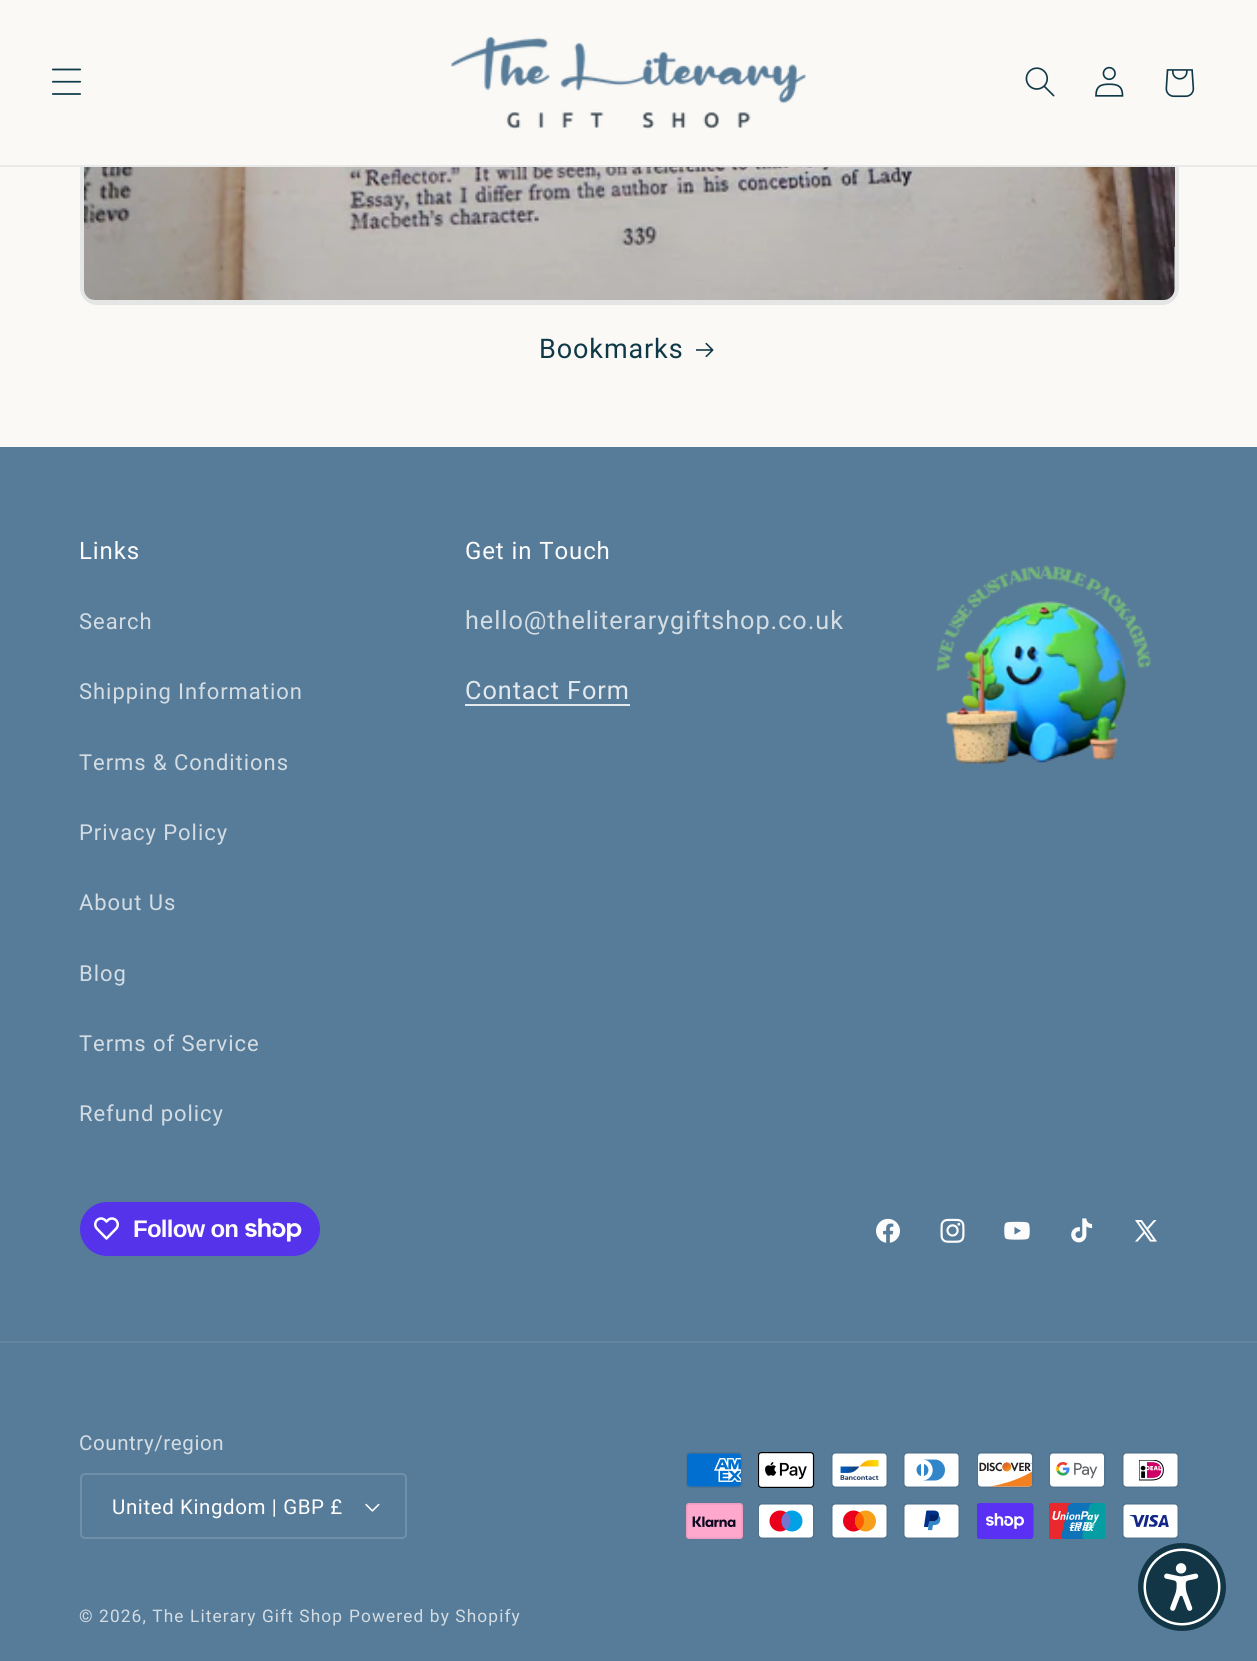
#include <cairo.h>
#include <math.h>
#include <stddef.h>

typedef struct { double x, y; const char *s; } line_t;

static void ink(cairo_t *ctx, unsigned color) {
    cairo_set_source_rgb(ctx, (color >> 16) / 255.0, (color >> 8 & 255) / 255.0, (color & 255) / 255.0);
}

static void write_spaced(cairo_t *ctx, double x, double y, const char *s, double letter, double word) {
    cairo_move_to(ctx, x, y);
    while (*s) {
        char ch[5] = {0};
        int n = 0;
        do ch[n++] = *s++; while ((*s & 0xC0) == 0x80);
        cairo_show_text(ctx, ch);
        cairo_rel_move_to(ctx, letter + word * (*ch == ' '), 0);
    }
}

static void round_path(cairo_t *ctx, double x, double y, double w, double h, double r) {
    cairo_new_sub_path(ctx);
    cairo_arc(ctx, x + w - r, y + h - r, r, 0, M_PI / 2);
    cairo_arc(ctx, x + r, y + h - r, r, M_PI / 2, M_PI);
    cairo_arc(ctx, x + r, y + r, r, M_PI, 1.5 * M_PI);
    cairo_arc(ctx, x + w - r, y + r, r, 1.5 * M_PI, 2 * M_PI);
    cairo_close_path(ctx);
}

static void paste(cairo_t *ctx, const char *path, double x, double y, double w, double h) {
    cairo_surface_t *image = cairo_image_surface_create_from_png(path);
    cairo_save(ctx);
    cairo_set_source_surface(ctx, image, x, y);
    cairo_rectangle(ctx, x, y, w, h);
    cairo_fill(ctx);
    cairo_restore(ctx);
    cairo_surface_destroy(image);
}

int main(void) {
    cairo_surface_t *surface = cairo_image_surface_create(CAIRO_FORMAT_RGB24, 1257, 1661);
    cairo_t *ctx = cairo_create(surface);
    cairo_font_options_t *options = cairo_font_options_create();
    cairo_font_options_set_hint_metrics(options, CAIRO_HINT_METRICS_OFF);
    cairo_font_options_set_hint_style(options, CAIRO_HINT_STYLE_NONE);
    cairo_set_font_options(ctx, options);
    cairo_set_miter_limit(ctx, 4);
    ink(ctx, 0xFAF9F6);
    cairo_paint(ctx);
    round_path(ctx, 82.5, -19.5, 1094, 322, 14.5);
    ink(ctx, 0xE3E6E5);
    cairo_set_line_width(ctx, 5);
    cairo_stroke(ctx);
    ink(ctx, 0xFAF9F6);
    cairo_rectangle(ctx, 80, 0, 1099, 165);
    cairo_fill(ctx);
    ink(ctx, 0xE7EAE8);
    cairo_rectangle(ctx, 0, 165, 1257, 2);
    cairo_fill(ctx);
    paste(ctx, "media/1.png", 51, 68, 31, 27);
    paste(ctx, "media/2.png", 450, 36, 356, 93);
    paste(ctx, "media/3.png", 1025, 67, 30, 30);
    paste(ctx, "media/4.png", 1095, 66, 29, 31);
    paste(ctx, "media/5.png", 1165, 69, 30, 29);
    paste(ctx, "media/6.png", 84, 167, 1091, 133);
    cairo_select_font_face(ctx, "Roboto", CAIRO_FONT_SLANT_NORMAL, CAIRO_FONT_WEIGHT_NORMAL);
    cairo_set_font_size(ctx, 27);
    ink(ctx, 0x103948);
    write_spaced(ctx, 539, 358, "Bookmarks", 0.9, 0);
    paste(ctx, "media/7.png", 696, 342, 18, 15);
    ink(ctx, 0x577C99);
    cairo_rectangle(ctx, 0, 447, 1257, 1214);
    cairo_fill(ctx);
    cairo_set_font_size(ctx, 24);
    ink(ctx, 0xFCFCFC);
    write_spaced(ctx, 79, 559, "Links", 0.9, 0);
    cairo_set_font_size(ctx, 22);
    ink(ctx, 0xD3DCE3);
    {
        static const line_t items[] = {
            {79, 629, "Search"},
            {79, 699, "Shipping Information"},
            {79, 770, "Terms & Conditions"},
            {79, 840, "Privacy Policy"},
            {79, 910, "About Us"},
            {79, 981, "Blog"},
            {79, 1051, "Terms of Service"},
            {79, 1121, "Refund policy"},
        };
        for (size_t i = 0; i < sizeof items / sizeof *items; i++) {
            write_spaced(ctx, items[i].x, items[i].y, items[i].s, 0.95, 0);
        }
    }
    cairo_set_font_size(ctx, 24);
    ink(ctx, 0xFCFCFC);
    write_spaced(ctx, 465, 559, "Get in Touch", 0.9, 0);
    cairo_set_font_size(ctx, 25.25);
    ink(ctx, 0xD3DCE3);
    write_spaced(ctx, 465, 629, "hello@theliterarygiftshop.co.uk", 0.95, 0);
    ink(ctx, 0xE3E9ED);
    write_spaced(ctx, 465, 699, "Contact Form", 0.95, 0);
    cairo_rectangle(ctx, 465, 704, 165, 2);
    cairo_fill(ctx);
    paste(ctx, "media/8.png", 936, 565, 215, 199);
    ink(ctx, 0x5433EB);
    round_path(ctx, 80, 1202, 240, 54, 27);
    cairo_fill(ctx);
    paste(ctx, "media/9.png", 94, 1217, 25, 23);
    cairo_select_font_face(ctx, "Liberation Sans", CAIRO_FONT_SLANT_NORMAL, CAIRO_FONT_WEIGHT_BOLD);
    cairo_set_font_size(ctx, 24);
    ink(ctx, 0xFCFCFC);
    write_spaced(ctx, 133, 1237, "Follow on", -0.75, 0);
    paste(ctx, "media/10.png", 245, 1218, 57, 24);
    paste(ctx, "media/11.png", 876, 1218, 24, 25);
    paste(ctx, "media/12.png", 940, 1218, 25, 25);
    paste(ctx, "media/13.png", 1004, 1221, 26, 19);
    paste(ctx, "media/14.png", 1071, 1218, 22, 25);
    paste(ctx, "media/15.png", 1135, 1220, 22, 22);
    ink(ctx, 0x6486A1);
    cairo_rectangle(ctx, 0, 1341, 1257, 2);
    cairo_fill(ctx);
    cairo_select_font_face(ctx, "Roboto", CAIRO_FONT_SLANT_NORMAL, CAIRO_FONT_WEIGHT_NORMAL);
    cairo_set_font_size(ctx, 20.5);
    ink(ctx, 0xD3DCE3);
    write_spaced(ctx, 79, 1450, "Country/region", 0.6, 0);
    paste(ctx, "media/16.png", 365, 1503, 15, 9);
    round_path(ctx, 81, 1474, 325, 64, 4);
    ink(ctx, 0x708FA8);
    cairo_set_line_width(ctx, 2);
    cairo_stroke(ctx);
    ink(ctx, 0xFCFCFC);
    write_spaced(ctx, 112, 1514, "United Kingdom | GBP £", 0.6, 0);
    paste(ctx, "media/17.png", 686, 1452, 57, 36);
    paste(ctx, "media/18.png", 758, 1452, 57, 36);
    paste(ctx, "media/19.png", 831, 1452, 57, 36);
    paste(ctx, "media/20.png", 903, 1452, 57, 36);
    paste(ctx, "media/21.png", 977, 1452, 57, 36);
    paste(ctx, "media/22.png", 1049, 1452, 57, 36);
    paste(ctx, "media/23.png", 1122, 1452, 57, 36);
    paste(ctx, "media/24.png", 686, 1503, 57, 36);
    paste(ctx, "media/25.png", 758, 1503, 57, 36);
    paste(ctx, "media/26.png", 831, 1503, 57, 36);
    paste(ctx, "media/27.png", 903, 1503, 57, 36);
    paste(ctx, "media/28.png", 977, 1503, 57, 36);
    paste(ctx, "media/29.png", 1049, 1503, 57, 36);
    paste(ctx, "media/30.png", 1122, 1503, 57, 36);
    cairo_set_font_size(ctx, 17.3);
    ink(ctx, 0xD3DCE3);
    write_spaced(ctx, 79, 1622, "© 2026, The Literary Gift Shop", 1.1, 0);
    write_spaced(ctx, 349, 1622, "Powered by Shopify", 1.1, 0);
    ink(ctx, 0x123645);
    cairo_new_path(ctx);
    cairo_arc(ctx, 1182, 1587, 44, 0, 2 * M_PI);
    cairo_fill(ctx);
    ink(ctx, 0xFFFFFF);
    cairo_arc(ctx, 1182, 1587, 38.5, 0, 2 * M_PI);
    cairo_fill(ctx);
    ink(ctx, 0x123645);
    cairo_arc(ctx, 1182, 1587, 36, 0, 2 * M_PI);
    cairo_fill(ctx);
    paste(ctx, "media/31.png", 1164, 1563, 35, 48);
    cairo_surface_write_to_png(surface, "image.png");
    cairo_font_options_destroy(options);
    cairo_destroy(ctx);
    cairo_surface_destroy(surface);
    return 0;
}
